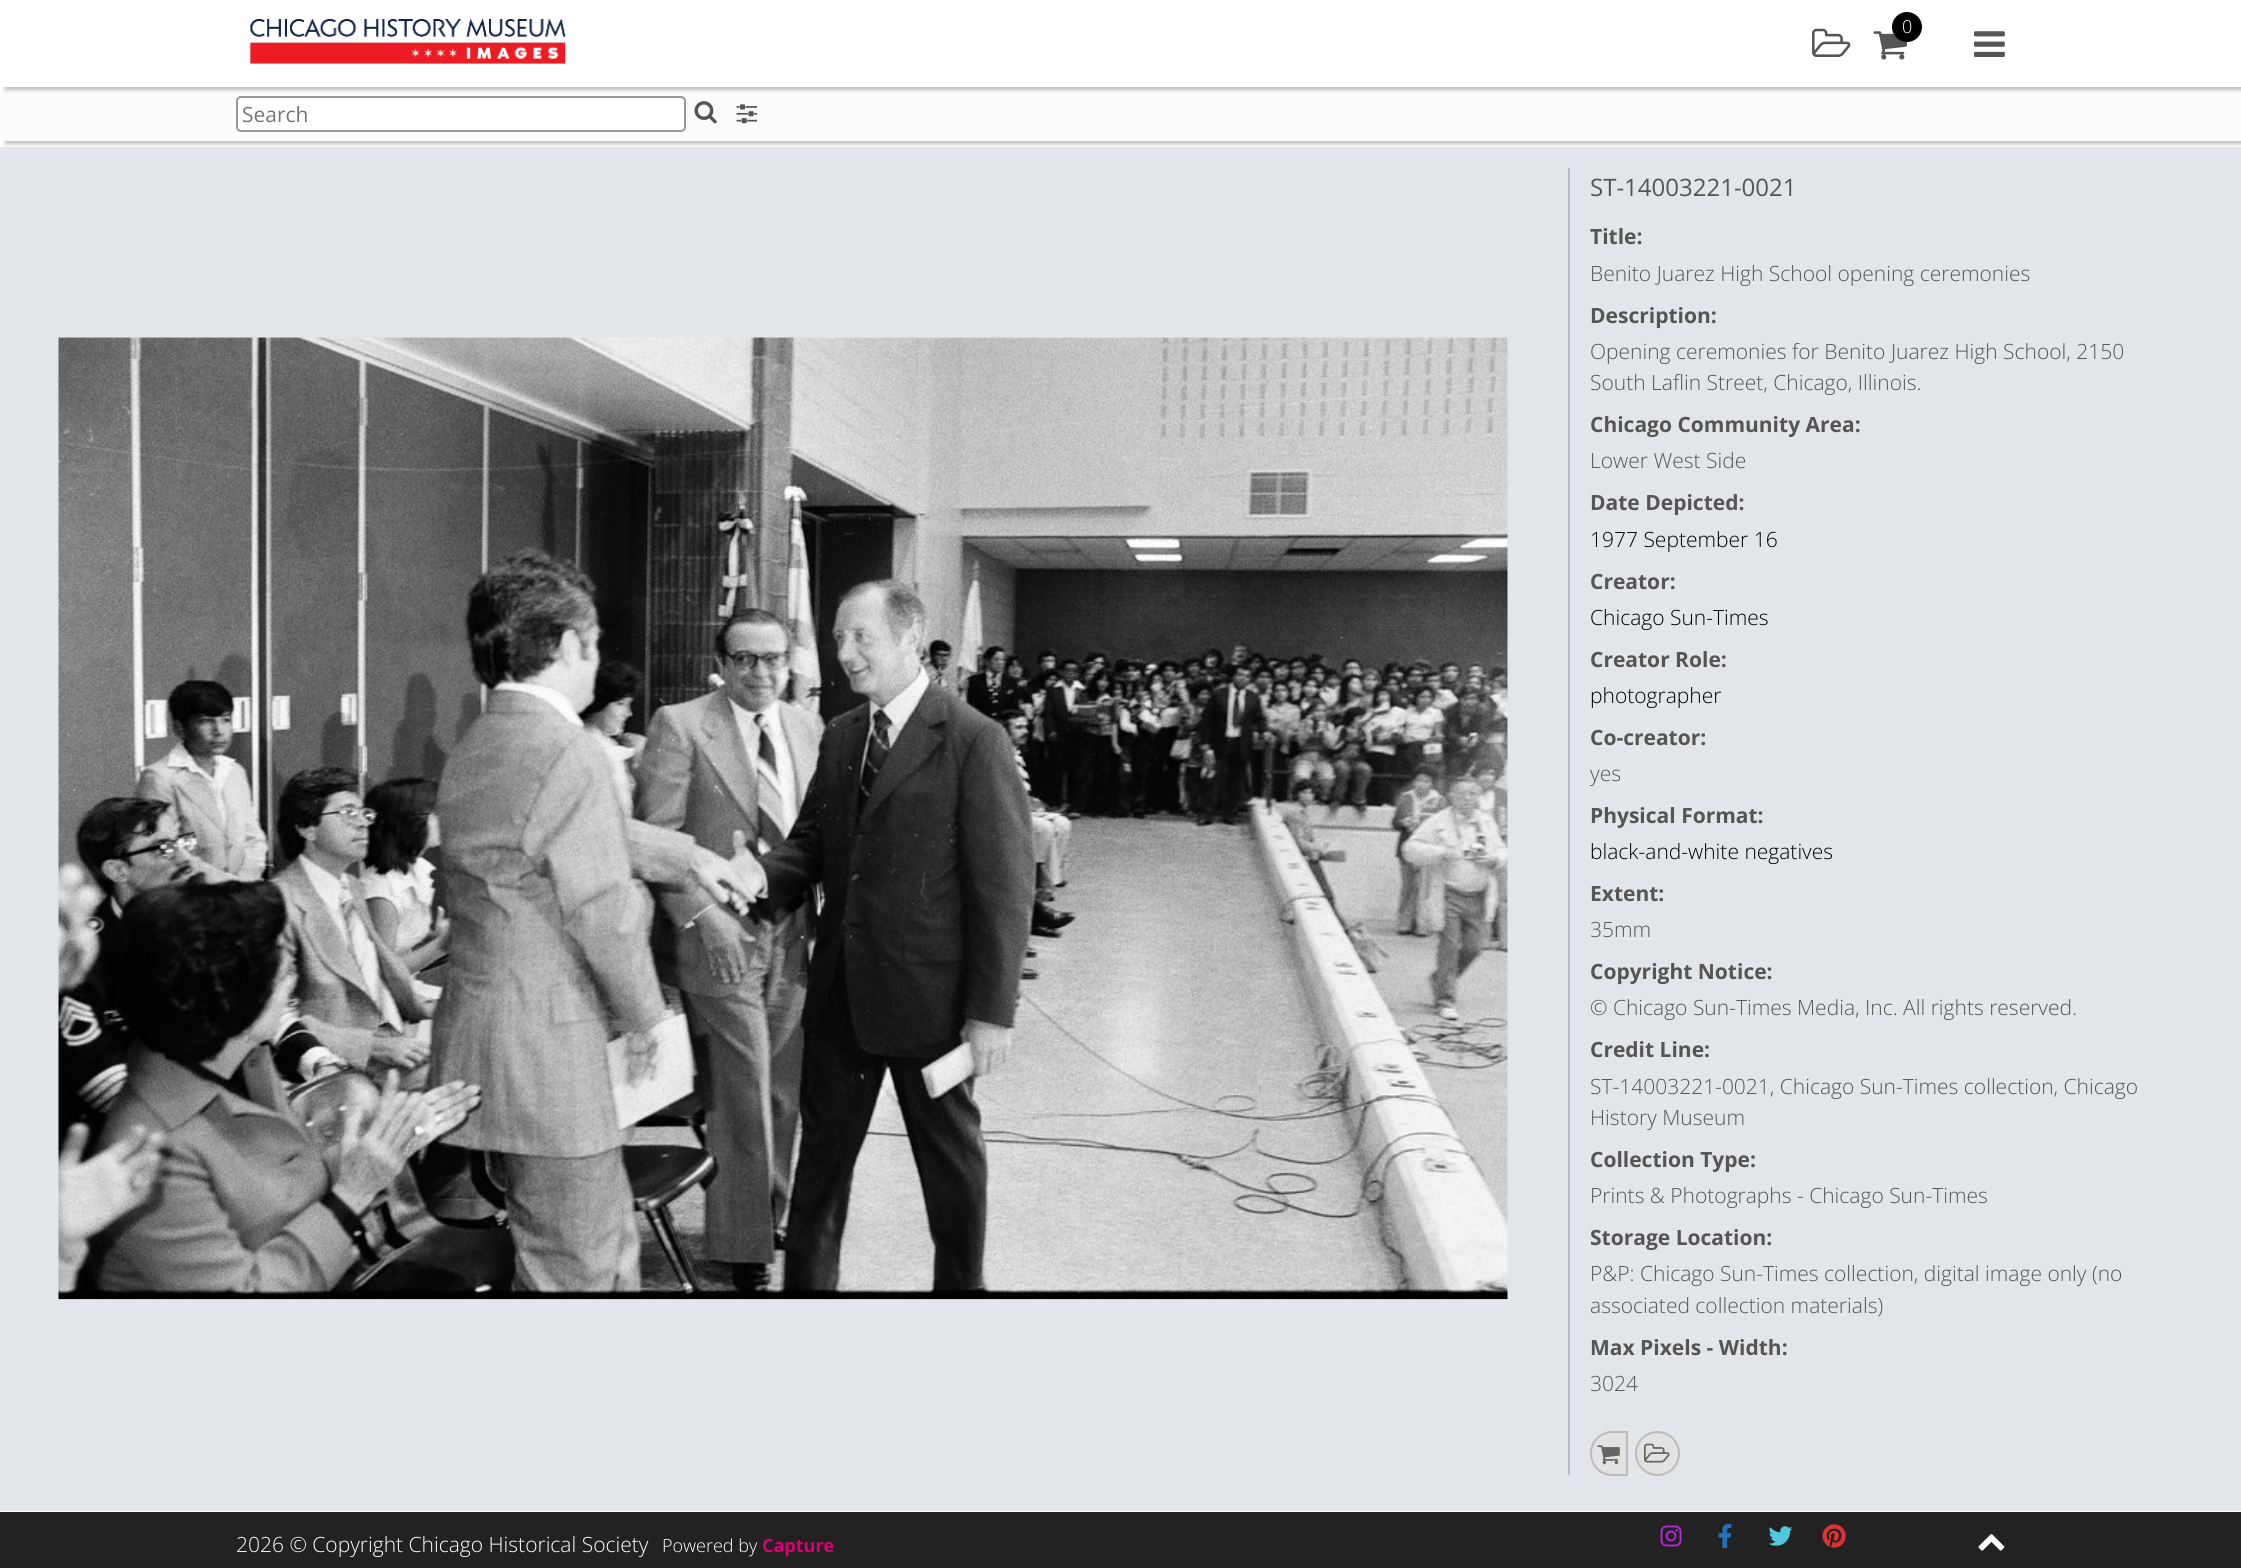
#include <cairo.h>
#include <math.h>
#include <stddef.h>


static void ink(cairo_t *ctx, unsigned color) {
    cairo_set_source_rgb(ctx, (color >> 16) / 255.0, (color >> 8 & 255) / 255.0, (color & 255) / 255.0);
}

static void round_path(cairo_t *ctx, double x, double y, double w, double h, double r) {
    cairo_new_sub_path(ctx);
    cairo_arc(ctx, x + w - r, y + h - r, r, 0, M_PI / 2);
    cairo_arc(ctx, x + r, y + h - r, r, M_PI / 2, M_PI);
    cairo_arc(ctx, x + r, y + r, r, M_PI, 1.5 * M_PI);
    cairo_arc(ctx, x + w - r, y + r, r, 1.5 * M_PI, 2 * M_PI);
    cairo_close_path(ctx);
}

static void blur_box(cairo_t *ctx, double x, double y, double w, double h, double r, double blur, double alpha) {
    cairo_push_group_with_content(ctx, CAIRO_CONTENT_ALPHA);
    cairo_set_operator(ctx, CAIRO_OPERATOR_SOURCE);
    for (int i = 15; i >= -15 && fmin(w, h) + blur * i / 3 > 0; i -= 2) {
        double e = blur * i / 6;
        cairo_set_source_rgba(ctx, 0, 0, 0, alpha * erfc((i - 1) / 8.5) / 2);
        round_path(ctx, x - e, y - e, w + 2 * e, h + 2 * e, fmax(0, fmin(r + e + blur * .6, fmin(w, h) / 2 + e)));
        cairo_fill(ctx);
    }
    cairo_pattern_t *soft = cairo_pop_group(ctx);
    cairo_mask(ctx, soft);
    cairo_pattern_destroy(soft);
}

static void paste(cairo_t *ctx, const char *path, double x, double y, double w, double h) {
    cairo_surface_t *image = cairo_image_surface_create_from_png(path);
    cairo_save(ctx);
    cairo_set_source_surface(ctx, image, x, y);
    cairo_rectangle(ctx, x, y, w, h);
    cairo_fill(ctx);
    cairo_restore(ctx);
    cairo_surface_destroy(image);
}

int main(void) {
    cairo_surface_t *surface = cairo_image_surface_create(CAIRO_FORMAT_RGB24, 2241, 1568);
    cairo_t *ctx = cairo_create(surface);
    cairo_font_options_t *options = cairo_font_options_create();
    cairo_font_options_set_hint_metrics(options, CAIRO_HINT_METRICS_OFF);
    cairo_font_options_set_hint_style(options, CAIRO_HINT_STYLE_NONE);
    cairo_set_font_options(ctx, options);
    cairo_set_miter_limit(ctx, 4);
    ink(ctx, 0xFFFFFF);
    cairo_paint(ctx);
    ink(ctx, 0xE2E5E9);
    cairo_rectangle(ctx, 0, 147, 2241, 1364);
    cairo_fill(ctx);
    ink(ctx, 0x4A4545);
    blur_box(ctx, 5, 90, 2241, 54, 0, 2, 0.35);
    ink(ctx, 0xFBFBFB);
    cairo_rectangle(ctx, 0, 87, 2241, 54);
    cairo_fill(ctx);
    ink(ctx, 0xFFFFFF);
    round_path(ctx, 237, 97, 448, 34, 4);
    cairo_fill_preserve(ctx);
    ink(ctx, 0x999999);
    cairo_stroke(ctx);
    ink(ctx, 0x4A4545);
    blur_box(ctx, 5, 3, 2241, 87, 0, 2, 0.35);
    ink(ctx, 0xFFFFFF);
    cairo_rectangle(ctx, 2, 0, 2239, 87);
    cairo_fill(ctx);
    paste(ctx, "media/1.png", 249, 19, 317, 45);
    paste(ctx, "media/2.png", 1873, 31, 34, 29);
    ink(ctx, 0x000000);
    cairo_arc(ctx, 1907, 27, 15, 0, 2 * M_PI);
    cairo_fill(ctx);
    cairo_select_font_face(ctx, "Open Sans Light", CAIRO_FONT_SLANT_NORMAL, CAIRO_FONT_WEIGHT_NORMAL);
    cairo_set_font_size(ctx, 18);
    ink(ctx, 0xFFFFFF);
    cairo_move_to(ctx, 1902, 33);
    cairo_show_text(ctx, "0");
    paste(ctx, "media/3.png", 1812, 28, 39, 29);
    paste(ctx, "media/4.png", 1974, 31, 31, 26);
    cairo_select_font_face(ctx, "Open Sans", CAIRO_FONT_SLANT_NORMAL, CAIRO_FONT_WEIGHT_NORMAL);
    cairo_set_font_size(ctx, 21);
    ink(ctx, 0x757575);
    cairo_move_to(ctx, 242, 122);
    cairo_show_text(ctx, "Search");
    paste(ctx, "media/5.png", 694, 101, 23, 23);
    paste(ctx, "media/6.png", 736, 104, 22, 20);
    ink(ctx, 0xB7BDC8);
    cairo_rectangle(ctx, 1568, 168, 2, 1307);
    cairo_fill(ctx);
    paste(ctx, "media/7.png", 58, 337, 1450, 963);
    cairo_set_font_size(ctx, 24);
    ink(ctx, 0x555555);
    cairo_move_to(ctx, 1590, 196);
    cairo_show_text(ctx, "ST-14003221-0021");
    cairo_select_font_face(ctx, "Open Sans", CAIRO_FONT_SLANT_NORMAL, CAIRO_FONT_WEIGHT_BOLD);
    cairo_set_font_size(ctx, 21);
    cairo_move_to(ctx, 1590, 244);
    cairo_show_text(ctx, "Title:");
    cairo_select_font_face(ctx, "Open Sans Light", CAIRO_FONT_SLANT_NORMAL, CAIRO_FONT_WEIGHT_NORMAL);
    cairo_move_to(ctx, 1590, 281);
    cairo_show_text(ctx, "Benito Juarez High School opening ceremonies");
    cairo_select_font_face(ctx, "Open Sans", CAIRO_FONT_SLANT_NORMAL, CAIRO_FONT_WEIGHT_BOLD);
    cairo_move_to(ctx, 1590, 323);
    cairo_show_text(ctx, "Description:");
    cairo_select_font_face(ctx, "Open Sans Light", CAIRO_FONT_SLANT_NORMAL, CAIRO_FONT_WEIGHT_NORMAL);
    cairo_move_to(ctx, 1590, 359);
    cairo_show_text(ctx, "Opening ceremonies for Benito Juarez High School, 2150");
    cairo_move_to(ctx, 1590, 390);
    cairo_show_text(ctx, "South Laflin Street, Chicago, Illinois.");
    cairo_select_font_face(ctx, "Open Sans", CAIRO_FONT_SLANT_NORMAL, CAIRO_FONT_WEIGHT_BOLD);
    cairo_move_to(ctx, 1590, 432);
    cairo_show_text(ctx, "Chicago Community Area:");
    cairo_select_font_face(ctx, "Open Sans Light", CAIRO_FONT_SLANT_NORMAL, CAIRO_FONT_WEIGHT_NORMAL);
    cairo_move_to(ctx, 1590, 468);
    cairo_show_text(ctx, "Lower West Side");
    cairo_select_font_face(ctx, "Open Sans", CAIRO_FONT_SLANT_NORMAL, CAIRO_FONT_WEIGHT_BOLD);
    cairo_move_to(ctx, 1590, 510);
    cairo_show_text(ctx, "Date Depicted:");
    cairo_select_font_face(ctx, "Open Sans Light", CAIRO_FONT_SLANT_NORMAL, CAIRO_FONT_WEIGHT_NORMAL);
    ink(ctx, 0x000000);
    cairo_move_to(ctx, 1590, 547);
    cairo_show_text(ctx, "1977 September 16");
    cairo_select_font_face(ctx, "Open Sans", CAIRO_FONT_SLANT_NORMAL, CAIRO_FONT_WEIGHT_BOLD);
    ink(ctx, 0x555555);
    cairo_move_to(ctx, 1590, 589);
    cairo_show_text(ctx, "Creator:");
    cairo_select_font_face(ctx, "Open Sans Light", CAIRO_FONT_SLANT_NORMAL, CAIRO_FONT_WEIGHT_NORMAL);
    ink(ctx, 0x000000);
    cairo_move_to(ctx, 1590, 625);
    cairo_show_text(ctx, "Chicago Sun-Times");
    cairo_select_font_face(ctx, "Open Sans", CAIRO_FONT_SLANT_NORMAL, CAIRO_FONT_WEIGHT_BOLD);
    ink(ctx, 0x555555);
    cairo_move_to(ctx, 1590, 667);
    cairo_show_text(ctx, "Creator Role:");
    cairo_select_font_face(ctx, "Open Sans Light", CAIRO_FONT_SLANT_NORMAL, CAIRO_FONT_WEIGHT_NORMAL);
    ink(ctx, 0x000000);
    cairo_move_to(ctx, 1590, 703);
    cairo_show_text(ctx, "photographer");
    cairo_select_font_face(ctx, "Open Sans", CAIRO_FONT_SLANT_NORMAL, CAIRO_FONT_WEIGHT_BOLD);
    ink(ctx, 0x555555);
    cairo_move_to(ctx, 1590, 745);
    cairo_show_text(ctx, "Co-creator:");
    cairo_select_font_face(ctx, "Open Sans Light", CAIRO_FONT_SLANT_NORMAL, CAIRO_FONT_WEIGHT_NORMAL);
    cairo_move_to(ctx, 1590, 781);
    cairo_show_text(ctx, "yes");
    cairo_select_font_face(ctx, "Open Sans", CAIRO_FONT_SLANT_NORMAL, CAIRO_FONT_WEIGHT_BOLD);
    cairo_move_to(ctx, 1590, 823);
    cairo_show_text(ctx, "Physical Format:");
    cairo_select_font_face(ctx, "Open Sans Light", CAIRO_FONT_SLANT_NORMAL, CAIRO_FONT_WEIGHT_NORMAL);
    ink(ctx, 0x000000);
    cairo_move_to(ctx, 1590, 859);
    cairo_show_text(ctx, "black-and-white negatives");
    cairo_select_font_face(ctx, "Open Sans", CAIRO_FONT_SLANT_NORMAL, CAIRO_FONT_WEIGHT_BOLD);
    ink(ctx, 0x555555);
    cairo_move_to(ctx, 1590, 901);
    cairo_show_text(ctx, "Extent:");
    cairo_select_font_face(ctx, "Open Sans Light", CAIRO_FONT_SLANT_NORMAL, CAIRO_FONT_WEIGHT_NORMAL);
    cairo_move_to(ctx, 1590, 937);
    cairo_show_text(ctx, "35mm");
    cairo_select_font_face(ctx, "Open Sans", CAIRO_FONT_SLANT_NORMAL, CAIRO_FONT_WEIGHT_BOLD);
    cairo_move_to(ctx, 1590, 979);
    cairo_show_text(ctx, "Copyright Notice:");
    cairo_select_font_face(ctx, "Open Sans Light", CAIRO_FONT_SLANT_NORMAL, CAIRO_FONT_WEIGHT_NORMAL);
    cairo_move_to(ctx, 1590, 1015);
    cairo_show_text(ctx, "© Chicago Sun-Times Media, Inc. All rights reserved.");
    cairo_select_font_face(ctx, "Open Sans", CAIRO_FONT_SLANT_NORMAL, CAIRO_FONT_WEIGHT_BOLD);
    cairo_move_to(ctx, 1590, 1057);
    cairo_show_text(ctx, "Credit Line:");
    cairo_select_font_face(ctx, "Open Sans Light", CAIRO_FONT_SLANT_NORMAL, CAIRO_FONT_WEIGHT_NORMAL);
    cairo_move_to(ctx, 1590, 1094);
    cairo_show_text(ctx, "ST-14003221-0021, Chicago Sun-Times collection, Chicago");
    cairo_move_to(ctx, 1590, 1125);
    cairo_show_text(ctx, "History Museum");
    cairo_select_font_face(ctx, "Open Sans", CAIRO_FONT_SLANT_NORMAL, CAIRO_FONT_WEIGHT_BOLD);
    cairo_move_to(ctx, 1590, 1167);
    cairo_show_text(ctx, "Collection Type:");
    cairo_select_font_face(ctx, "Open Sans Light", CAIRO_FONT_SLANT_NORMAL, CAIRO_FONT_WEIGHT_NORMAL);
    cairo_move_to(ctx, 1590, 1203);
    cairo_show_text(ctx, "Prints & Photographs - Chicago Sun-Times");
    cairo_select_font_face(ctx, "Open Sans", CAIRO_FONT_SLANT_NORMAL, CAIRO_FONT_WEIGHT_BOLD);
    cairo_move_to(ctx, 1590, 1245);
    cairo_show_text(ctx, "Storage Location:");
    cairo_select_font_face(ctx, "Open Sans Light", CAIRO_FONT_SLANT_NORMAL, CAIRO_FONT_WEIGHT_NORMAL);
    cairo_move_to(ctx, 1590, 1281);
    cairo_show_text(ctx, "P&P: Chicago Sun-Times collection, digital image only (no");
    cairo_move_to(ctx, 1590, 1313);
    cairo_show_text(ctx, "associated collection materials)");
    cairo_select_font_face(ctx, "Open Sans", CAIRO_FONT_SLANT_NORMAL, CAIRO_FONT_WEIGHT_BOLD);
    cairo_move_to(ctx, 1590, 1355);
    cairo_show_text(ctx, "Max Pixels - Width:");
    cairo_select_font_face(ctx, "Open Sans Light", CAIRO_FONT_SLANT_NORMAL, CAIRO_FONT_WEIGHT_NORMAL);
    cairo_move_to(ctx, 1590, 1391);
    cairo_show_text(ctx, "3024");
    ink(ctx, 0xE2E2E2);
    cairo_new_path(ctx);
    cairo_move_to(ctx, 1612.5, 1432);
    cairo_line_to(ctx, 1627, 1432);
    cairo_line_to(ctx, 1627, 1475);
    cairo_line_to(ctx, 1612.5, 1475);
    cairo_curve_to(ctx, 1600.5, 1475, 1591, 1465.5, 1591, 1453.5);
    cairo_curve_to(ctx, 1591, 1441.5, 1600.5, 1432, 1612.5, 1432);
    cairo_close_path(ctx);
    cairo_fill_preserve(ctx);
    ink(ctx, 0xBBBBBB);
    cairo_stroke(ctx);
    paste(ctx, "media/8.png", 1597, 1445, 23, 20);
    ink(ctx, 0xE2E2E2);
    cairo_arc(ctx, 1657.5, 1453.5, 21.5, 0, 2 * M_PI);
    cairo_fill_preserve(ctx);
    ink(ctx, 0xBBBBBB);
    cairo_stroke(ctx);
    paste(ctx, "media/9.png", 1644, 1443, 26, 20);
    ink(ctx, 0x222222);
    cairo_rectangle(ctx, 0, 1512, 2241, 56);
    cairo_fill(ctx);
    ink(ctx, 0xFFFFFF);
    cairo_move_to(ctx, 236, 1552);
    cairo_show_text(ctx, "2026 © Copyright Chicago Historical Society");
    cairo_set_font_size(ctx, 18);
    cairo_move_to(ctx, 662, 1552);
    cairo_show_text(ctx, "Powered by");
    cairo_select_font_face(ctx, "Open Sans", CAIRO_FONT_SLANT_NORMAL, CAIRO_FONT_WEIGHT_BOLD);
    ink(ctx, 0xDB0074);
    cairo_move_to(ctx, 762, 1552);
    cairo_show_text(ctx, "Capture");
    paste(ctx, "media/10.png", 1660, 1525, 22, 22);
    paste(ctx, "media/11.png", 1718, 1524, 14, 24);
    paste(ctx, "media/12.png", 1768, 1526, 25, 20);
    paste(ctx, "media/13.png", 1822, 1524, 24, 24);
    paste(ctx, "media/14.png", 1978, 1534, 27, 17);
    cairo_surface_write_to_png(surface, "image.png");
    cairo_font_options_destroy(options);
    cairo_destroy(ctx);
    cairo_surface_destroy(surface);
    return 0;
}
